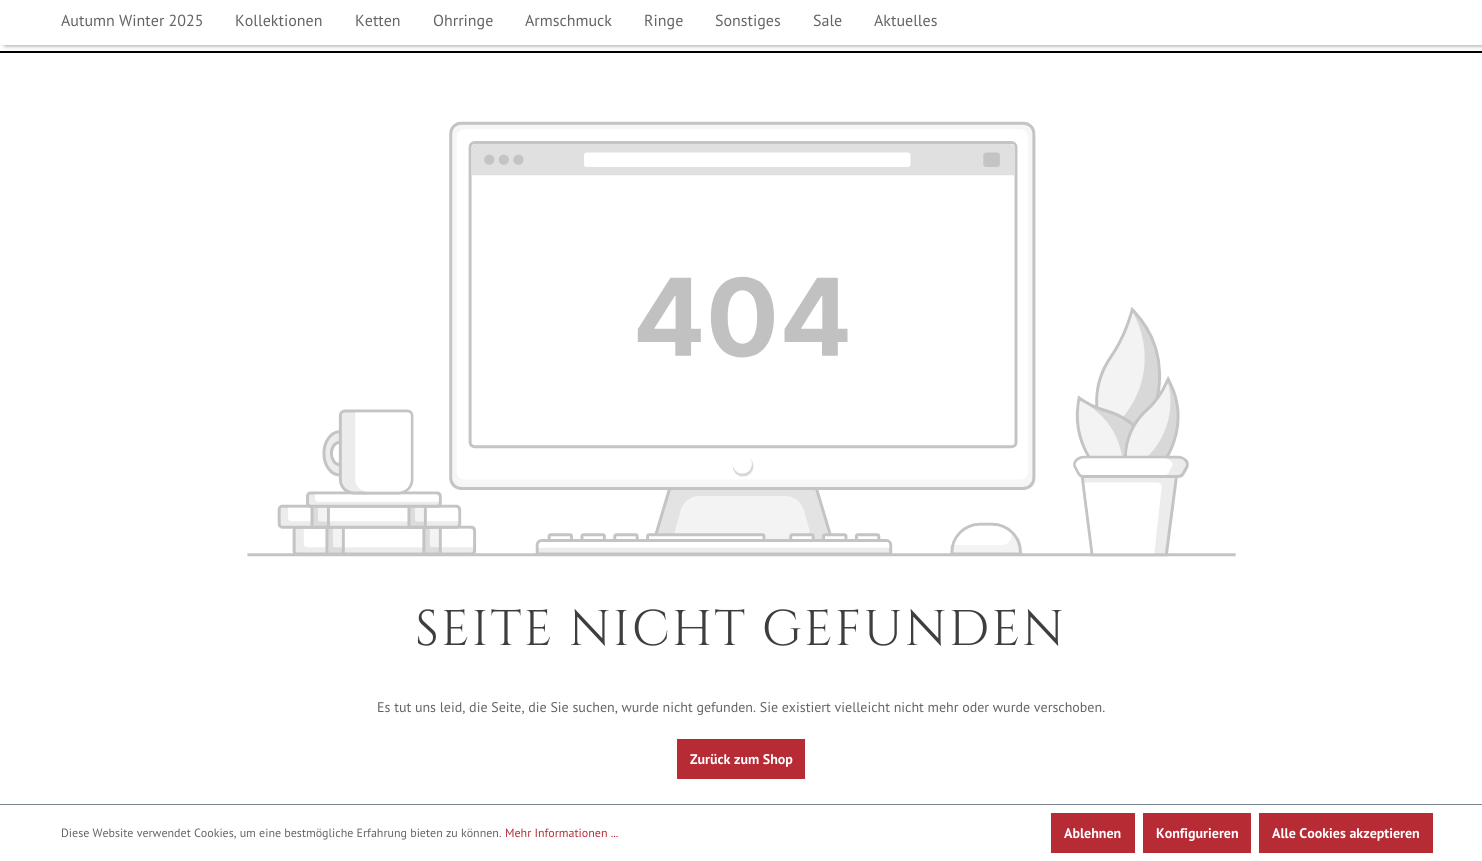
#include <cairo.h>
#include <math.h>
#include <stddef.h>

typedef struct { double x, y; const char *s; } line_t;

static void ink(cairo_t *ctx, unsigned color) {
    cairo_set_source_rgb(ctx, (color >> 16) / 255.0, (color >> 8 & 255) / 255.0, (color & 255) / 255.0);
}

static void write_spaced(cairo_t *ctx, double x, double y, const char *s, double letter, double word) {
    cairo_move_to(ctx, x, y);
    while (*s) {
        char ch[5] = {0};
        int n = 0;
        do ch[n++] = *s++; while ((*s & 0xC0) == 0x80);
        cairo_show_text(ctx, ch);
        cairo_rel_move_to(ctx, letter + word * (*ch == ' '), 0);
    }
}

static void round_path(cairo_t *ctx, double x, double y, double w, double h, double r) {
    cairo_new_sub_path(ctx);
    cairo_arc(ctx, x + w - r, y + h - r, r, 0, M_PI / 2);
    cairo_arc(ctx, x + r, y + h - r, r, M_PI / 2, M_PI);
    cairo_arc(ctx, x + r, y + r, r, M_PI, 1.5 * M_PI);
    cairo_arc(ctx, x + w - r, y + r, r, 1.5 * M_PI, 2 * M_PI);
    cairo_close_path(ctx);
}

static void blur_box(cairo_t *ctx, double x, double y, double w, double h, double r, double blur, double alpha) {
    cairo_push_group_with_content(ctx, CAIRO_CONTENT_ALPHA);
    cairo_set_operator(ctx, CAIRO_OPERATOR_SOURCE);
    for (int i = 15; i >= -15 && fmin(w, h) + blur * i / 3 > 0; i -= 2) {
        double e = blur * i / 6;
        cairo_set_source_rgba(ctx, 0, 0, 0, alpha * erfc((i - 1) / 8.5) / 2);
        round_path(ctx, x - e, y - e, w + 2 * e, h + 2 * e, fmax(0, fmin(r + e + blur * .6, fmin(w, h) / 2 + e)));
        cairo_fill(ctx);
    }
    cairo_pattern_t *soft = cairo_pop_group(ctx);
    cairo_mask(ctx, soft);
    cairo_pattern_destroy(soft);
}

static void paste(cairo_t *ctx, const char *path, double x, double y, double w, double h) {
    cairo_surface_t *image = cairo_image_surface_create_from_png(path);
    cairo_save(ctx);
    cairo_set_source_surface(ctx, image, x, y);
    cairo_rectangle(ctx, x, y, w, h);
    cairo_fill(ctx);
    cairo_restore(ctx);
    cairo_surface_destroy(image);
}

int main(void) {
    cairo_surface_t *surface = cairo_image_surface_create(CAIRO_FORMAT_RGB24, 1482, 861);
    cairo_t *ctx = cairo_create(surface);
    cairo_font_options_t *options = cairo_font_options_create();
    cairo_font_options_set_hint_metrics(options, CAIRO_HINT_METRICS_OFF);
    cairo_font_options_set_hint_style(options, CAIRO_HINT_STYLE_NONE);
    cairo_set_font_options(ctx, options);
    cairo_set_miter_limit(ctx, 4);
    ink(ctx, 0xFFFFFF);
    cairo_paint(ctx);
    ink(ctx, 0x000000);
    cairo_rectangle(ctx, 0, 51, 1482, 2);
    cairo_fill(ctx);
    ink(ctx, 0x000000);
    blur_box(ctx, 5, 0, 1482, 45, 0, 2.5, 0.5);
    ink(ctx, 0xFFFFFF);
    cairo_rectangle(ctx, 0, 0, 1482, 45);
    cairo_fill(ctx);
    cairo_select_font_face(ctx, "PT Sans", CAIRO_FONT_SLANT_NORMAL, CAIRO_FONT_WEIGHT_NORMAL);
    cairo_set_font_size(ctx, 16);
    ink(ctx, 0x646464);
    {
        static const line_t items[] = {
            {61, 26, "Autumn Winter 2025"},
            {235, 26, "Kollektionen"},
            {355, 26, "Ketten"},
            {433, 26, "Ohrringe"},
            {525, 26, "Armschmuck"},
            {644, 26, "Ringe"},
            {715, 26, "Sonstiges"},
            {813, 26, "Sale"},
            {874, 26, "Aktuelles"},
        };
        for (size_t i = 0; i < sizeof items / sizeof *items; i++) {
            cairo_move_to(ctx, items[i].x, items[i].y);
            cairo_show_text(ctx, items[i].s);
        }
    }
    paste(ctx, "media/1.png", 247, 121, 989, 436);
    cairo_select_font_face(ctx, "Cinzel", CAIRO_FONT_SLANT_NORMAL, CAIRO_FONT_WEIGHT_NORMAL);
    cairo_set_font_size(ctx, 50);
    ink(ctx, 0x3E3E3E);
    write_spaced(ctx, 415, 645, "SEITE NICHT GEFUNDEN", 2, 0);
    cairo_select_font_face(ctx, "PT Sans", CAIRO_FONT_SLANT_NORMAL, CAIRO_FONT_WEIGHT_NORMAL);
    cairo_set_font_size(ctx, 14);
    ink(ctx, 0x646464);
    cairo_move_to(ctx, 377, 712);
    cairo_show_text(ctx, "Es tut uns leid, die Seite, die Sie suchen, wurde nicht gefunden. Sie existiert vielleicht nicht mehr oder wurde verschoben.");
    ink(ctx, 0xB72B35);
    cairo_rectangle(ctx, 677, 739, 128, 40);
    cairo_fill(ctx);
    cairo_select_font_face(ctx, "PT Sans", CAIRO_FONT_SLANT_NORMAL, CAIRO_FONT_WEIGHT_BOLD);
    ink(ctx, 0xFFFFFF);
    cairo_move_to(ctx, 690, 764);
    cairo_show_text(ctx, "Zurück zum Shop");
    ink(ctx, 0x798490);
    cairo_rectangle(ctx, 0, 804, 1482, 1);
    cairo_fill(ctx);
    cairo_select_font_face(ctx, "PT Sans", CAIRO_FONT_SLANT_NORMAL, CAIRO_FONT_WEIGHT_NORMAL);
    cairo_set_font_size(ctx, 12);
    ink(ctx, 0x646464);
    cairo_move_to(ctx, 61, 837);
    cairo_show_text(ctx, "Diese Website verwendet Cookies, um eine bestmögliche Erfahrung bieten zu können.");
    ink(ctx, 0xB72B35);
    cairo_move_to(ctx, 505, 837);
    cairo_show_text(ctx, "Mehr Informationen ...");
    cairo_rectangle(ctx, 1051, 813, 84, 40);
    cairo_fill(ctx);
    cairo_select_font_face(ctx, "PT Sans", CAIRO_FONT_SLANT_NORMAL, CAIRO_FONT_WEIGHT_BOLD);
    cairo_set_font_size(ctx, 14);
    ink(ctx, 0xFFFFFF);
    cairo_move_to(ctx, 1064, 838);
    cairo_show_text(ctx, "Ablehnen");
    ink(ctx, 0xB72B35);
    cairo_rectangle(ctx, 1143, 813, 108, 40);
    cairo_fill(ctx);
    ink(ctx, 0xFFFFFF);
    cairo_move_to(ctx, 1156, 838);
    cairo_show_text(ctx, "Konfigurieren");
    ink(ctx, 0xB72B35);
    cairo_rectangle(ctx, 1259, 813, 174, 40);
    cairo_fill(ctx);
    ink(ctx, 0xFFFFFF);
    cairo_move_to(ctx, 1272, 838);
    cairo_show_text(ctx, "Alle Cookies akzeptieren");
    cairo_surface_write_to_png(surface, "image.png");
    cairo_font_options_destroy(options);
    cairo_destroy(ctx);
    cairo_surface_destroy(surface);
    return 0;
}
